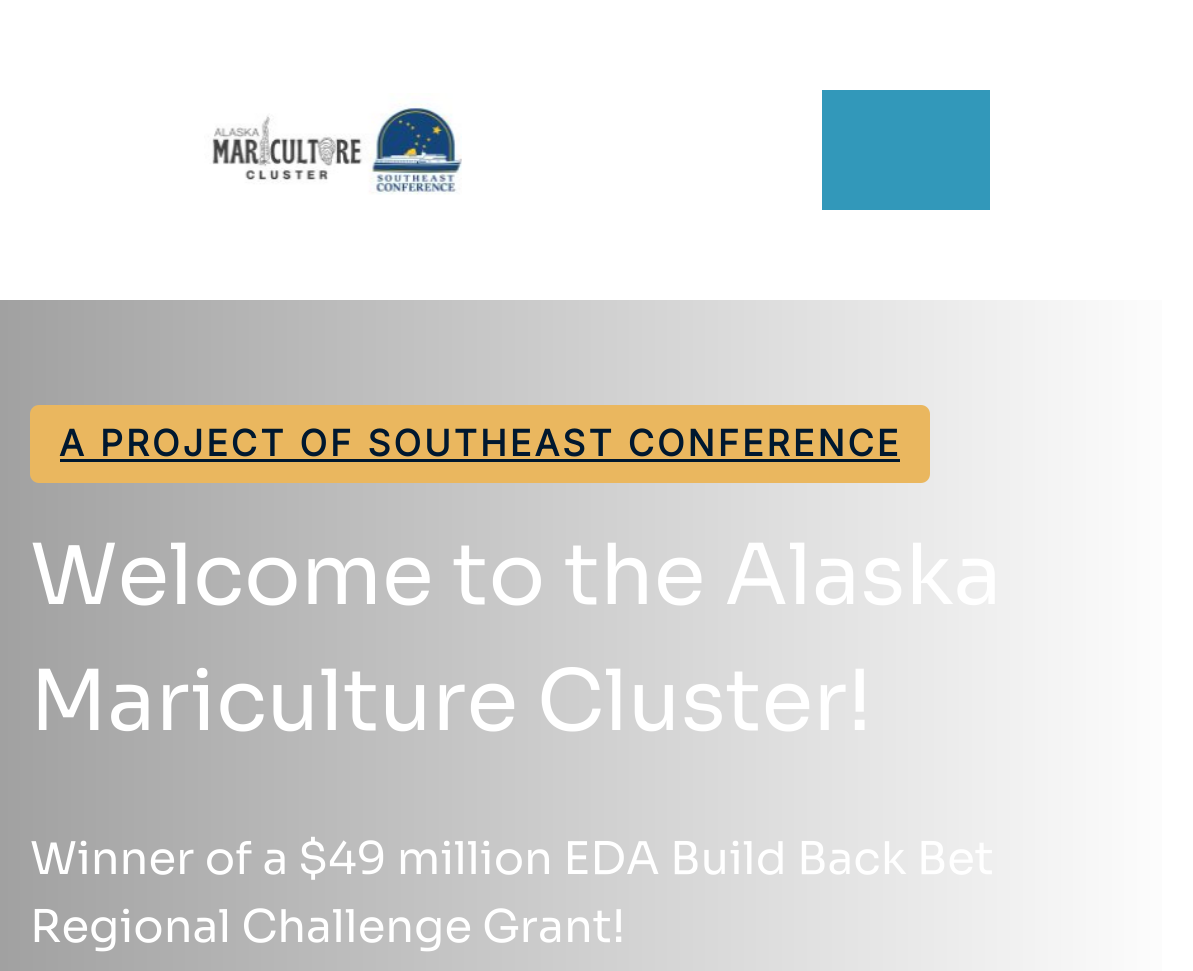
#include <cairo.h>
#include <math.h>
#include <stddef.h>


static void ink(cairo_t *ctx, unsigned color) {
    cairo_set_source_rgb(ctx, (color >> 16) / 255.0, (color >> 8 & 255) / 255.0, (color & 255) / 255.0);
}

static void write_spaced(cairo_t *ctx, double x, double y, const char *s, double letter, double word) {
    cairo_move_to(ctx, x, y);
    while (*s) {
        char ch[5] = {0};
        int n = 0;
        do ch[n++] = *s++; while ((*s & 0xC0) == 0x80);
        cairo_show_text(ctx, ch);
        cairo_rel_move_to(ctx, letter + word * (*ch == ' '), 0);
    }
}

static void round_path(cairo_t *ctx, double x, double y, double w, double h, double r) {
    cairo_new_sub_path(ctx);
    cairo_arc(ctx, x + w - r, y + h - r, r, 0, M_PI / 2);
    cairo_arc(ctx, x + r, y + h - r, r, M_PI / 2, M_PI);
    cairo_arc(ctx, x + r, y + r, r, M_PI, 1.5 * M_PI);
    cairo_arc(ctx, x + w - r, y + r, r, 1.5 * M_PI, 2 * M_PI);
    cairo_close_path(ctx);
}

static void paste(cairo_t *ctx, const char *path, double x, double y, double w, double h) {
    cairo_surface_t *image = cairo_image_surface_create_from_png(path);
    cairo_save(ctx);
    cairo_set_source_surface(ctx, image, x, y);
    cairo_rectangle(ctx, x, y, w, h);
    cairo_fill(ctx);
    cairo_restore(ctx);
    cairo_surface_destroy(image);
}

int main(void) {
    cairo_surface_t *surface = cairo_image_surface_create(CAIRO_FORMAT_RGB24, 1193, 971);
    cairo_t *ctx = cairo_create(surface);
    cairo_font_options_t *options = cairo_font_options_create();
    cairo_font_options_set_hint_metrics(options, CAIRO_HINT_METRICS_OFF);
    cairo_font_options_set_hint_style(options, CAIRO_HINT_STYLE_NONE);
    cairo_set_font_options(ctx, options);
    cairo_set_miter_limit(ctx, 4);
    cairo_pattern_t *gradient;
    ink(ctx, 0xFFFFFF);
    cairo_paint(ctx);
    paste(ctx, "media/1.png", 204, 93, 258, 102);
    ink(ctx, 0x3298BA);
    cairo_rectangle(ctx, 822, 90, 168, 120);
    cairo_fill(ctx);
    gradient = cairo_pattern_create_linear(0, 906, 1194, 906);
    cairo_pattern_add_color_stop_rgba(gradient, 0, 0.631, 0.631, 0.631, 1);
    cairo_pattern_add_color_stop_rgba(gradient, 1, 1, 1, 1, 1);
    cairo_set_source(ctx, gradient);
    cairo_pattern_destroy(gradient);
    cairo_rectangle(ctx, 0, 300, 1162, 671);
    cairo_fill(ctx);
    ink(ctx, 0xEAB75F);
    round_path(ctx, 30, 405, 900, 78, 9);
    cairo_fill(ctx);
    cairo_select_font_face(ctx, "Inter", CAIRO_FONT_SLANT_NORMAL, CAIRO_FONT_WEIGHT_BOLD);
    cairo_set_font_size(ctx, 36);
    ink(ctx, 0x00182F);
    write_spaced(ctx, 59, 456, "A PROJECT OF SOUTHEAST CONFERENCE", 3, 0);
    cairo_rectangle(ctx, 60, 459, 840, 3);
    cairo_fill(ctx);
    cairo_select_font_face(ctx, "Sora", CAIRO_FONT_SLANT_NORMAL, CAIRO_FONT_WEIGHT_NORMAL);
    cairo_set_font_size(ctx, 84);
    ink(ctx, 0xFFFFFF);
    cairo_move_to(ctx, 30, 604);
    cairo_show_text(ctx, "Welcome to the Alaska");
    cairo_move_to(ctx, 30, 730);
    cairo_show_text(ctx, "Mariculture Cluster!");
    cairo_set_font_size(ctx, 45);
    cairo_move_to(ctx, 30, 874);
    cairo_show_text(ctx, "Winner of a $49 million EDA Build Back Bet");
    cairo_move_to(ctx, 30, 942);
    cairo_show_text(ctx, "Regional Challenge Grant!");
    cairo_surface_write_to_png(surface, "image.png");
    cairo_font_options_destroy(options);
    cairo_destroy(ctx);
    cairo_surface_destroy(surface);
    return 0;
}
